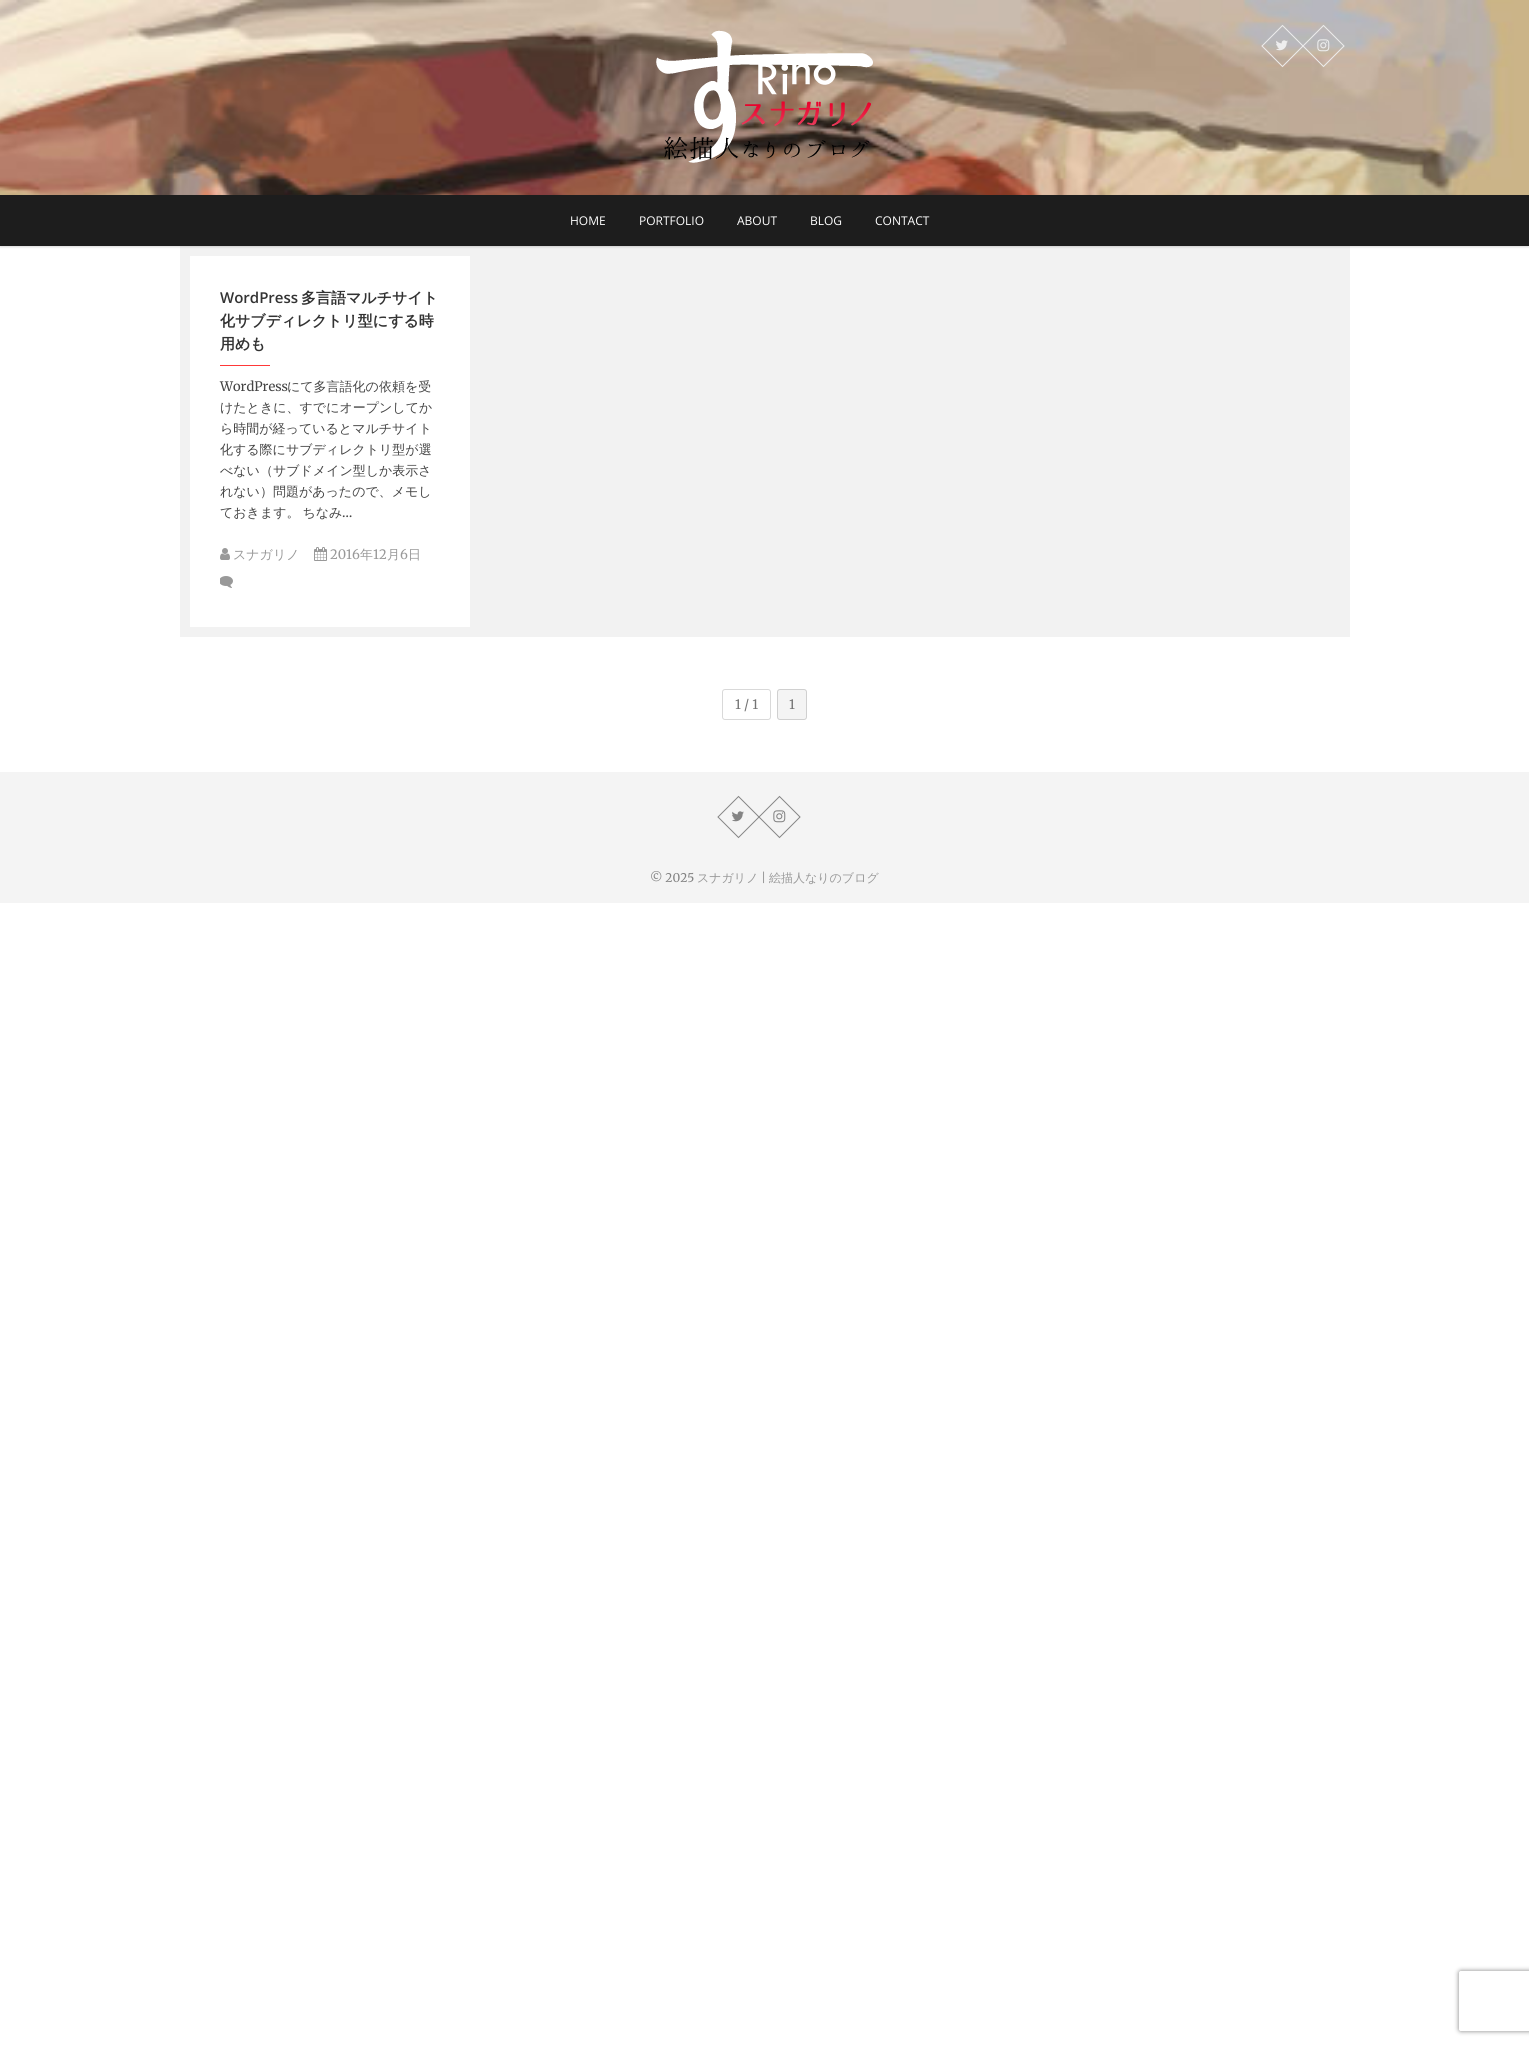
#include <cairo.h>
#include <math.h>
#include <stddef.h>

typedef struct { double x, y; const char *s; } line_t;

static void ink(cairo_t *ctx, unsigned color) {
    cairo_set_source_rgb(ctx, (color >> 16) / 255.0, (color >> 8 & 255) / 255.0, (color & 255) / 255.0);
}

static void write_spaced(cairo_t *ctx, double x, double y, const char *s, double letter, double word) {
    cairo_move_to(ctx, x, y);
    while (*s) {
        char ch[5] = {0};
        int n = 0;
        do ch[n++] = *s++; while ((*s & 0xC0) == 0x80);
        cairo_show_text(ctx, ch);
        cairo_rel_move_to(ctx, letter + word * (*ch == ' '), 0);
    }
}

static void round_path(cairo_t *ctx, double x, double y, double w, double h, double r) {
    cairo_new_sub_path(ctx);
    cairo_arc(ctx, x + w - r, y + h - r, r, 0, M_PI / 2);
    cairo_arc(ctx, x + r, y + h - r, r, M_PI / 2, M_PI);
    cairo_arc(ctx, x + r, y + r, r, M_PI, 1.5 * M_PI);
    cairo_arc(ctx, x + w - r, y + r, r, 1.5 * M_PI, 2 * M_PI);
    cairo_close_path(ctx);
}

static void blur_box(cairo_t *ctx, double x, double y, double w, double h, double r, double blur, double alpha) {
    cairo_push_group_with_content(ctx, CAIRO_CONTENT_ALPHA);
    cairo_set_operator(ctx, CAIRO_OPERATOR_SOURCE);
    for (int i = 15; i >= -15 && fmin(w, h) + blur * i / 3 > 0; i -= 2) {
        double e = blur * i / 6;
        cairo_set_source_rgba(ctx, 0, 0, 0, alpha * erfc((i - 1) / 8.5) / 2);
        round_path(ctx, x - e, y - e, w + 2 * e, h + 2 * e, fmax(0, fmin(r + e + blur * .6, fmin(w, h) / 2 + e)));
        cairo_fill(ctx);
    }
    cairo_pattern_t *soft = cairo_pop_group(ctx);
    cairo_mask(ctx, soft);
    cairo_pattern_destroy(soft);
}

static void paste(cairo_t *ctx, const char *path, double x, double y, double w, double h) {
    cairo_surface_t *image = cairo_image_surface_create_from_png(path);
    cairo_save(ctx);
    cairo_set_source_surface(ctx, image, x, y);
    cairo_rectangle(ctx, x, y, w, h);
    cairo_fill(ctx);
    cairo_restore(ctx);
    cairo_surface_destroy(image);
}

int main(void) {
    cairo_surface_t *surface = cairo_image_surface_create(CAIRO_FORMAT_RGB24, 1529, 2045);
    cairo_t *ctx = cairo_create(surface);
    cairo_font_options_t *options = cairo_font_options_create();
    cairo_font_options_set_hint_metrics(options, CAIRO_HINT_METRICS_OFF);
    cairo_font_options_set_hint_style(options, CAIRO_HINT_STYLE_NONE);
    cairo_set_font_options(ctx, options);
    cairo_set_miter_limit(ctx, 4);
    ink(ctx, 0xFFFFFF);
    cairo_paint(ctx);
    paste(ctx, "media/1.png", 0, 0, 1529, 195);
    paste(ctx, "media/2.png", 656, 30, 217, 133);
    cairo_new_path(ctx);
    cairo_move_to(ctx, 1262, 46);
    cairo_line_to(ctx, 1282.5, 25.5);
    cairo_line_to(ctx, 1303, 46);
    cairo_line_to(ctx, 1282.5, 66.5);
    cairo_close_path(ctx);
    ink(ctx, 0xEEEEEE);
    cairo_set_line_width(ctx, 1);
    cairo_stroke(ctx);
    paste(ctx, "media/3.png", 1276, 40, 12, 11);
    cairo_new_path(ctx);
    cairo_move_to(ctx, 1303, 46);
    cairo_line_to(ctx, 1323.5, 25.5);
    cairo_line_to(ctx, 1344, 46);
    cairo_line_to(ctx, 1323.5, 66.5);
    cairo_close_path(ctx);
    cairo_stroke(ctx);
    paste(ctx, "media/4.png", 1317, 39, 13, 13);
    ink(ctx, 0xF2F2F2);
    cairo_rectangle(ctx, 180, 246, 1170, 391);
    cairo_fill(ctx);
    ink(ctx, 0x000000);
    blur_box(ctx, 0, 196, 1529, 51, 0, 1, 0.15);
    ink(ctx, 0x1D1D1D);
    cairo_rectangle(ctx, 0, 195, 1529, 51);
    cairo_fill(ctx);
    cairo_select_font_face(ctx, "Open Sans", CAIRO_FONT_SLANT_NORMAL, CAIRO_FONT_WEIGHT_NORMAL);
    cairo_set_font_size(ctx, 12);
    ink(ctx, 0xFFFFFF);
    {
        static const line_t items[] = {
            {570, 225, "HOME"},
            {639, 225, "PORTFOLIO"},
            {737, 225, "ABOUT"},
            {810, 225, "BLOG"},
            {875, 225, "CONTACT"},
        };
        for (size_t i = 0; i < sizeof items / sizeof *items; i++) {
            cairo_move_to(ctx, items[i].x, items[i].y);
            cairo_show_text(ctx, items[i].s);
        }
    }
    cairo_rectangle(ctx, 190, 256, 280, 371);
    cairo_fill(ctx);
    cairo_select_font_face(ctx, "Open Sans SemiBold", CAIRO_FONT_SLANT_NORMAL, CAIRO_FONT_WEIGHT_NORMAL);
    cairo_set_font_size(ctx, 15);
    ink(ctx, 0x333333);
    cairo_move_to(ctx, 220, 303);
    cairo_show_text(ctx, "WordPress");
    cairo_select_font_face(ctx, "WenQuanYi Zen Hei", CAIRO_FONT_SLANT_NORMAL, CAIRO_FONT_WEIGHT_BOLD);
    {
        static const line_t items[] = {
            {301, 303, "多言語マルチサイト"},
            {220, 326, "化サブディレクトリ型にする時"},
            {220, 349, "用めも"},
        };
        for (size_t i = 0; i < sizeof items / sizeof *items; i++) {
            cairo_move_to(ctx, items[i].x, items[i].y);
            cairo_show_text(ctx, items[i].s);
        }
    }
    ink(ctx, 0xFF3838);
    cairo_rectangle(ctx, 220, 365, 50, 1);
    cairo_fill(ctx);
    cairo_select_font_face(ctx, "Merriweather Light", CAIRO_FONT_SLANT_NORMAL, CAIRO_FONT_WEIGHT_NORMAL);
    cairo_set_font_size(ctx, 13);
    ink(ctx, 0x444444);
    cairo_move_to(ctx, 220, 391);
    cairo_show_text(ctx, "WordPress");
    cairo_select_font_face(ctx, "WenQuanYi Zen Hei Medium", CAIRO_FONT_SLANT_NORMAL, CAIRO_FONT_WEIGHT_NORMAL);
    {
        static const line_t items[] = {
            {287, 391, "にて多言語化の依頼を受"},
            {220, 412, "けたときに、すでにオープンしてか"},
            {220, 433, "ら時間が経っているとマルチサイト"},
            {220, 454, "化する際にサブディレクトリ型が選"},
            {220, 475, "べない（サブドメイン型しか表示さ"},
            {220, 496, "れない）問題があったので、メモし"},
        };
        for (size_t i = 0; i < sizeof items / sizeof *items; i++) {
            cairo_move_to(ctx, items[i].x, items[i].y);
            cairo_show_text(ctx, items[i].s);
        }
    }
    write_spaced(ctx, 220, 517, "ておきます。 ちなみ", 0, -1);
    cairo_select_font_face(ctx, "Merriweather Light", CAIRO_FONT_SLANT_NORMAL, CAIRO_FONT_WEIGHT_NORMAL);
    cairo_move_to(ctx, 342, 517);
    cairo_show_text(ctx, "…");
    paste(ctx, "media/5.png", 220, 548, 10, 12);
    cairo_select_font_face(ctx, "WenQuanYi Zen Hei Medium", CAIRO_FONT_SLANT_NORMAL, CAIRO_FONT_WEIGHT_NORMAL);
    ink(ctx, 0x999999);
    cairo_move_to(ctx, 233, 559);
    cairo_show_text(ctx, "スナガリノ");
    paste(ctx, "media/6.png", 314, 547, 13, 14);
    cairo_select_font_face(ctx, "Merriweather Light", CAIRO_FONT_SLANT_NORMAL, CAIRO_FONT_WEIGHT_NORMAL);
    cairo_move_to(ctx, 330, 559);
    cairo_show_text(ctx, "2016");
    cairo_select_font_face(ctx, "WenQuanYi Zen Hei Medium", CAIRO_FONT_SLANT_NORMAL, CAIRO_FONT_WEIGHT_NORMAL);
    cairo_move_to(ctx, 360, 559);
    cairo_show_text(ctx, "年");
    cairo_select_font_face(ctx, "Merriweather Light", CAIRO_FONT_SLANT_NORMAL, CAIRO_FONT_WEIGHT_NORMAL);
    cairo_move_to(ctx, 373, 559);
    cairo_show_text(ctx, "12");
    cairo_select_font_face(ctx, "WenQuanYi Zen Hei Medium", CAIRO_FONT_SLANT_NORMAL, CAIRO_FONT_WEIGHT_NORMAL);
    cairo_move_to(ctx, 387, 559);
    cairo_show_text(ctx, "月");
    cairo_select_font_face(ctx, "Merriweather Light", CAIRO_FONT_SLANT_NORMAL, CAIRO_FONT_WEIGHT_NORMAL);
    cairo_move_to(ctx, 400, 559);
    cairo_show_text(ctx, "6");
    cairo_select_font_face(ctx, "WenQuanYi Zen Hei Medium", CAIRO_FONT_SLANT_NORMAL, CAIRO_FONT_WEIGHT_NORMAL);
    cairo_move_to(ctx, 408, 559);
    cairo_show_text(ctx, "日");
    paste(ctx, "media/7.png", 220, 576, 13, 12);
    round_path(ctx, 722.5, 689.5, 48, 30, 2.5);
    ink(ctx, 0xD9D9D9);
    cairo_stroke(ctx);
    cairo_select_font_face(ctx, "Merriweather Light", CAIRO_FONT_SLANT_NORMAL, CAIRO_FONT_WEIGHT_NORMAL);
    ink(ctx, 0x747474);
    cairo_move_to(ctx, 735, 709);
    cairo_show_text(ctx, "1 / 1");
    ink(ctx, 0xF4F4F4);
    round_path(ctx, 777, 689, 30, 31, 3);
    cairo_fill(ctx);
    round_path(ctx, 777.5, 689.5, 29, 30, 2.5);
    cairo_set_source_rgba(ctx, 0, 0, 0, 0.15);
    cairo_stroke(ctx);
    ink(ctx, 0x747474);
    cairo_move_to(ctx, 789, 709);
    cairo_show_text(ctx, "1");
    ink(ctx, 0xF4F4F4);
    cairo_rectangle(ctx, 0, 772, 1529, 131);
    cairo_fill(ctx);
    cairo_new_path(ctx);
    cairo_move_to(ctx, 718, 817);
    cairo_line_to(ctx, 738.5, 796.5);
    cairo_line_to(ctx, 759, 817);
    cairo_line_to(ctx, 738.5, 837.5);
    cairo_close_path(ctx);
    ink(ctx, 0x848484);
    cairo_stroke(ctx);
    paste(ctx, "media/8.png", 732, 811, 12, 11);
    cairo_new_path(ctx);
    cairo_move_to(ctx, 759, 817);
    cairo_line_to(ctx, 779.5, 796.5);
    cairo_line_to(ctx, 800, 817);
    cairo_line_to(ctx, 779.5, 837.5);
    cairo_close_path(ctx);
    cairo_stroke(ctx);
    paste(ctx, "media/9.png", 773, 810, 13, 13);
    cairo_set_font_size(ctx, 12);
    cairo_move_to(ctx, 650, 882);
    cairo_show_text(ctx, "© 2025");
    cairo_select_font_face(ctx, "WenQuanYi Zen Hei Medium", CAIRO_FONT_SLANT_NORMAL, CAIRO_FONT_WEIGHT_NORMAL);
    ink(ctx, 0x999999);
    cairo_move_to(ctx, 697, 882);
    cairo_show_text(ctx, "スナガリノ");
    cairo_select_font_face(ctx, "Merriweather Light", CAIRO_FONT_SLANT_NORMAL, CAIRO_FONT_WEIGHT_NORMAL);
    cairo_move_to(ctx, 761, 882);
    cairo_show_text(ctx, "|");
    cairo_select_font_face(ctx, "WenQuanYi Zen Hei Medium", CAIRO_FONT_SLANT_NORMAL, CAIRO_FONT_WEIGHT_NORMAL);
    cairo_move_to(ctx, 769, 882);
    cairo_show_text(ctx, "絵描人なりのブログ");
    cairo_save(ctx);
    cairo_set_fill_rule(ctx, CAIRO_FILL_RULE_EVEN_ODD);
    cairo_new_path(ctx);
    cairo_move_to(ctx, 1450, 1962);
    cairo_line_to(ctx, 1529, 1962);
    cairo_line_to(ctx, 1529, 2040);
    cairo_line_to(ctx, 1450, 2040);
    cairo_close_path(ctx);
    cairo_move_to(ctx, 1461, 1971);
    cairo_line_to(ctx, 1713, 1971);
    cairo_curve_to(ctx, 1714, 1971, 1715, 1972, 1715, 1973);
    cairo_line_to(ctx, 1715, 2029);
    cairo_curve_to(ctx, 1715, 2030, 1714, 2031, 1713, 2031);
    cairo_line_to(ctx, 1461, 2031);
    cairo_curve_to(ctx, 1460, 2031, 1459, 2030, 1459, 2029);
    cairo_line_to(ctx, 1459, 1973);
    cairo_curve_to(ctx, 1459, 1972, 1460, 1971, 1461, 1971);
    cairo_close_path(ctx);
    cairo_clip(ctx);
    ink(ctx, 0x808080);
    blur_box(ctx, 1459, 1971, 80, 60, 2, 2.5, 1);
    cairo_restore(ctx);
    cairo_surface_write_to_png(surface, "image.png");
    cairo_font_options_destroy(options);
    cairo_destroy(ctx);
    cairo_surface_destroy(surface);
    return 0;
}
